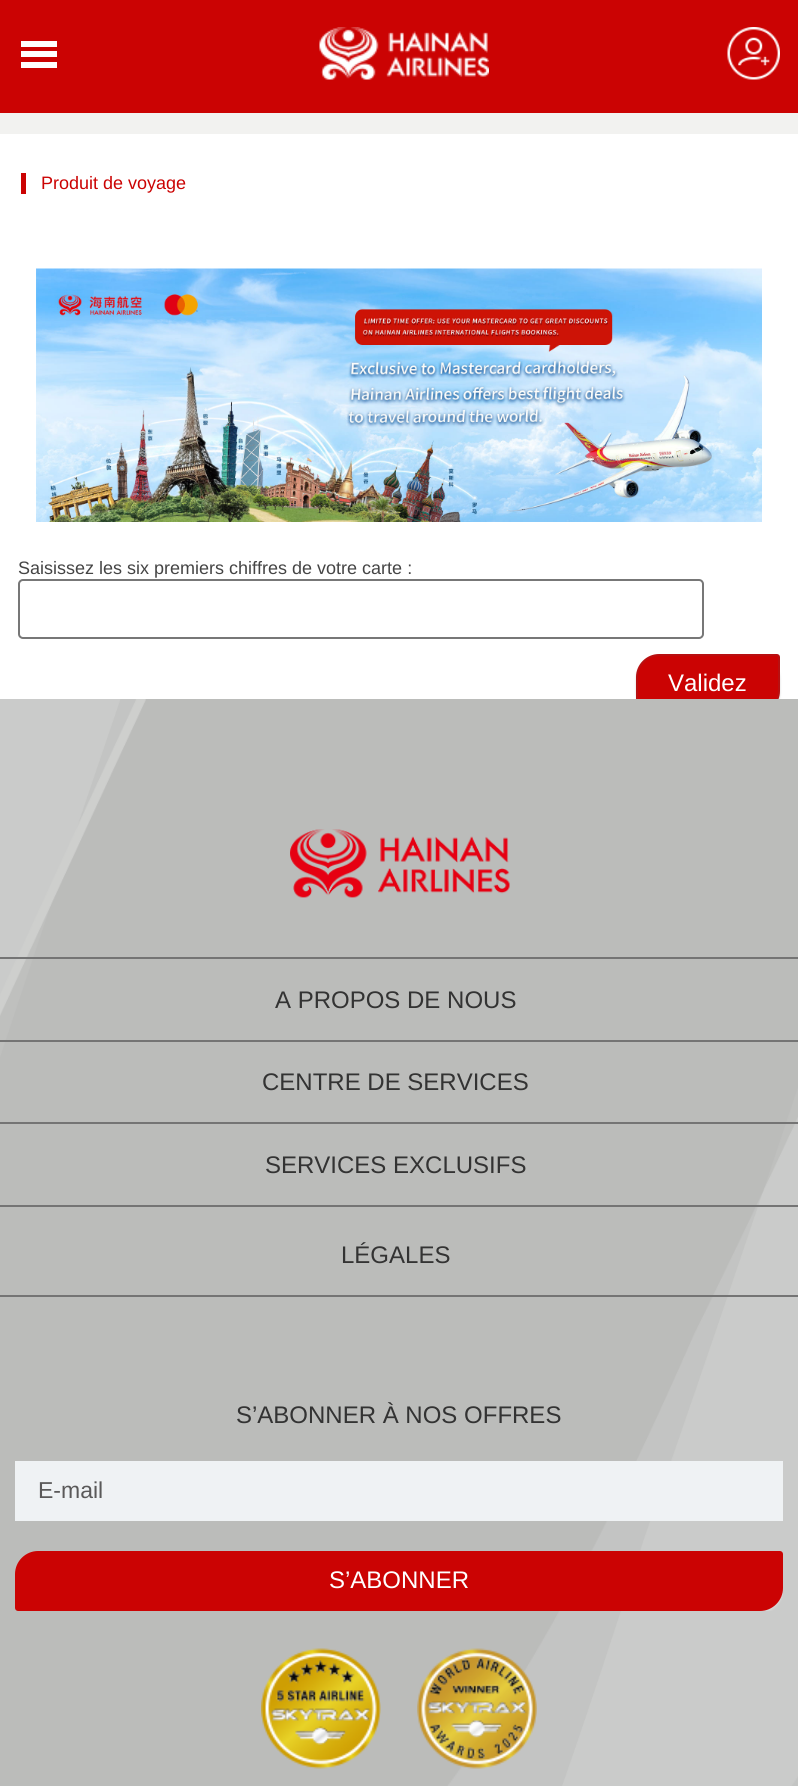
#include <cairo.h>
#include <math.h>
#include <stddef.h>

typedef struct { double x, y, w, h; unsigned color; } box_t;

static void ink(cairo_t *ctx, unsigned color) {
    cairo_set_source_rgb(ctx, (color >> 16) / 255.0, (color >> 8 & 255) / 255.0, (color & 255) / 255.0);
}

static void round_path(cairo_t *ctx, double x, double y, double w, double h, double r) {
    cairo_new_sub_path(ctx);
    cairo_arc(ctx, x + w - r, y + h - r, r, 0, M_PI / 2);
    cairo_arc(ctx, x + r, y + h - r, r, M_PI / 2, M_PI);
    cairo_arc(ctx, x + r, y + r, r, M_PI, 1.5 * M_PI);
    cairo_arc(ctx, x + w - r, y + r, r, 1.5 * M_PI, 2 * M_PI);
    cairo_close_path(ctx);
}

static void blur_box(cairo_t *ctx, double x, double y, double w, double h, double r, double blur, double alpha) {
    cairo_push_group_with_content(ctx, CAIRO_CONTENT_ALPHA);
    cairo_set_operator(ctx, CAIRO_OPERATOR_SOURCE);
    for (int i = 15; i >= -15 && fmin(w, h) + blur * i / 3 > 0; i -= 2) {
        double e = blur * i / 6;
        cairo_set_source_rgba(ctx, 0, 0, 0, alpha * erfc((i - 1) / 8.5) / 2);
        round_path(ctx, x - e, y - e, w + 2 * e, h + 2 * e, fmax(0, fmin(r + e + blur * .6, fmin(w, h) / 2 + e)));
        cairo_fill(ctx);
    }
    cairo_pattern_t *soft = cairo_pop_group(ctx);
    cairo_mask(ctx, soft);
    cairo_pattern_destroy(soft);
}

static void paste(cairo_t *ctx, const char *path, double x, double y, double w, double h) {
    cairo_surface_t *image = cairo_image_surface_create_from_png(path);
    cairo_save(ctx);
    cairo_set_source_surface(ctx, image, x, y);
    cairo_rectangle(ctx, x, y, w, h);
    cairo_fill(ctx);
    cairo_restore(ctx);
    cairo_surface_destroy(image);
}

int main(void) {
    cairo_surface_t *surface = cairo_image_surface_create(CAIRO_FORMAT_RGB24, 798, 1786);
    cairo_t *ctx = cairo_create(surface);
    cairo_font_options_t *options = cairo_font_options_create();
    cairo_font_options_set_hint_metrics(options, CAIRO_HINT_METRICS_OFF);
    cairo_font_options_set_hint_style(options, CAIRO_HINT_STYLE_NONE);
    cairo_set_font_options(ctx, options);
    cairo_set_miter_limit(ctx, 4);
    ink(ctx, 0xF2F2F0);
    cairo_paint(ctx);
    {
        static const box_t items[] = {
            {0, 0, 798, 113, 0xCB0303},
            {21, 41, 36, 6, 0xFFFFFF},
            {21, 51, 36, 6, 0xFFFFFF},
            {21, 62, 36, 6, 0xFFFFFF},
        };
        for (size_t i = 0; i < sizeof items / sizeof *items; i++) {
            ink(ctx, items[i].color);
            cairo_rectangle(ctx, items[i].x, items[i].y, items[i].w, items[i].h);
            cairo_fill(ctx);
        }
    }
    paste(ctx, "media/1.png", 319, 27, 170, 53);
    paste(ctx, "media/2.png", 727, 27, 53, 53);
    cairo_rectangle(ctx, 0, 134, 798, 565);
    cairo_fill(ctx);
    ink(ctx, 0xCB0303);
    cairo_rectangle(ctx, 21, 173, 5, 21);
    cairo_fill(ctx);
    cairo_select_font_face(ctx, "Liberation Sans", CAIRO_FONT_SLANT_NORMAL, CAIRO_FONT_WEIGHT_NORMAL);
    cairo_set_font_size(ctx, 18);
    cairo_move_to(ctx, 41, 189);
    cairo_show_text(ctx, "Produit de voyage");
    paste(ctx, "media/3.png", 36, 268, 726, 254);
    ink(ctx, 0x454545);
    cairo_move_to(ctx, 18, 574);
    cairo_show_text(ctx, "Saisissez les six premiers chiffres de votre carte :");
    round_path(ctx, 19, 580, 684, 58, 4);
    ink(ctx, 0x777777);
    cairo_stroke(ctx);
    ink(ctx, 0xD9D9D9);
    blur_box(ctx, 636, 656, 144, 60, 23, 1, 1);
    ink(ctx, 0xCB0303);
    cairo_new_path(ctx);
    cairo_move_to(ctx, 659, 655);
    cairo_line_to(ctx, 777, 655);
    cairo_curve_to(ctx, 778, 655, 779, 656, 779, 657);
    cairo_line_to(ctx, 779, 691);
    cairo_curve_to(ctx, 779, 703, 769, 713, 757, 713);
    cairo_line_to(ctx, 639, 713);
    cairo_curve_to(ctx, 638, 713, 637, 712, 637, 711);
    cairo_line_to(ctx, 637, 677);
    cairo_curve_to(ctx, 637, 665, 647, 655, 659, 655);
    cairo_close_path(ctx);
    cairo_fill_preserve(ctx);
    ink(ctx, 0xB81011);
    cairo_stroke(ctx);
    cairo_set_font_size(ctx, 24);
    ink(ctx, 0xFFFFFF);
    cairo_move_to(ctx, 668, 691);
    cairo_show_text(ctx, "Validez");
    paste(ctx, "media/4.png", 0, 699, 798, 1087);
    paste(ctx, "media/5.png", 290, 829, 220, 69);
    ink(ctx, 0x747474);
    cairo_rectangle(ctx, 0, 957, 798, 2);
    cairo_fill(ctx);
    ink(ctx, 0x333333);
    cairo_move_to(ctx, 275, 1008);
    cairo_show_text(ctx, "A PROPOS DE NOUS");
    ink(ctx, 0x747474);
    cairo_rectangle(ctx, 0, 1040, 798, 2);
    cairo_fill(ctx);
    ink(ctx, 0x333333);
    cairo_move_to(ctx, 262, 1090);
    cairo_show_text(ctx, "CENTRE DE SERVICES");
    ink(ctx, 0x747474);
    cairo_rectangle(ctx, 0, 1122, 798, 2);
    cairo_fill(ctx);
    ink(ctx, 0x333333);
    cairo_move_to(ctx, 265, 1173);
    cairo_show_text(ctx, "SERVICES EXCLUSIFS");
    ink(ctx, 0x747474);
    cairo_rectangle(ctx, 0, 1205, 798, 2);
    cairo_fill(ctx);
    cairo_rectangle(ctx, 0, 1295, 798, 2);
    cairo_fill(ctx);
    ink(ctx, 0x333333);
    cairo_move_to(ctx, 341, 1263);
    cairo_show_text(ctx, "LÉGALES");
    cairo_move_to(ctx, 236, 1423);
    cairo_show_text(ctx, "S’ABONNER À NOS OFFRES");
    ink(ctx, 0xEFF2F4);
    cairo_rectangle(ctx, 15, 1461, 768, 60);
    cairo_fill(ctx);
    cairo_set_font_size(ctx, 23);
    ink(ctx, 0x5A5959);
    cairo_move_to(ctx, 38, 1498);
    cairo_show_text(ctx, "E-mail");
    cairo_save(ctx);
    cairo_rectangle(ctx, 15, 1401, 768, 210);
    cairo_clip(ctx);
    ink(ctx, 0xD9D9D9);
    blur_box(ctx, 15, 1553, 768, 60, 23, 1, 1);
    cairo_restore(ctx);
    ink(ctx, 0xCB0303);
    cairo_new_path(ctx);
    cairo_move_to(ctx, 38, 1552);
    cairo_line_to(ctx, 780, 1552);
    cairo_curve_to(ctx, 781, 1552, 782, 1553, 782, 1554);
    cairo_line_to(ctx, 782, 1588);
    cairo_curve_to(ctx, 782, 1600, 772, 1610, 760, 1610);
    cairo_line_to(ctx, 18, 1610);
    cairo_curve_to(ctx, 17, 1610, 16, 1609, 16, 1608);
    cairo_line_to(ctx, 16, 1574);
    cairo_curve_to(ctx, 16, 1562, 26, 1552, 38, 1552);
    cairo_close_path(ctx);
    cairo_fill_preserve(ctx);
    cairo_stroke(ctx);
    cairo_set_font_size(ctx, 24);
    ink(ctx, 0xFFFFFF);
    cairo_move_to(ctx, 329, 1588);
    cairo_show_text(ctx, "S’ABONNER");
    paste(ctx, "media/6.png", 261, 1648, 120, 121);
    paste(ctx, "media/7.png", 417, 1648, 120, 121);
    cairo_surface_write_to_png(surface, "image.png");
    cairo_font_options_destroy(options);
    cairo_destroy(ctx);
    cairo_surface_destroy(surface);
    return 0;
}
